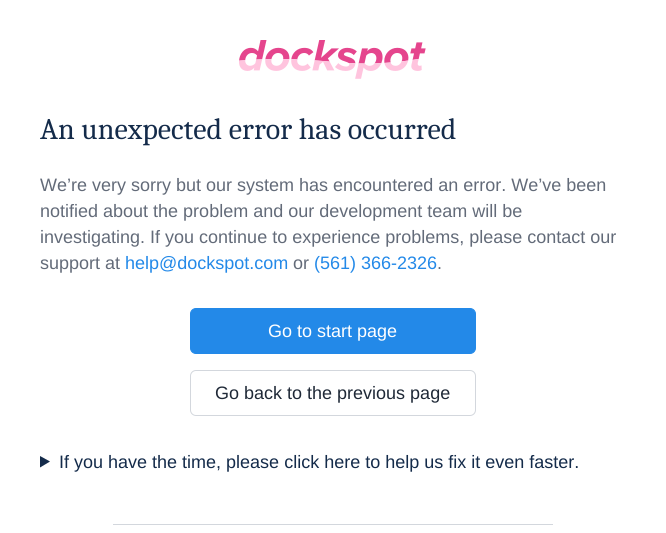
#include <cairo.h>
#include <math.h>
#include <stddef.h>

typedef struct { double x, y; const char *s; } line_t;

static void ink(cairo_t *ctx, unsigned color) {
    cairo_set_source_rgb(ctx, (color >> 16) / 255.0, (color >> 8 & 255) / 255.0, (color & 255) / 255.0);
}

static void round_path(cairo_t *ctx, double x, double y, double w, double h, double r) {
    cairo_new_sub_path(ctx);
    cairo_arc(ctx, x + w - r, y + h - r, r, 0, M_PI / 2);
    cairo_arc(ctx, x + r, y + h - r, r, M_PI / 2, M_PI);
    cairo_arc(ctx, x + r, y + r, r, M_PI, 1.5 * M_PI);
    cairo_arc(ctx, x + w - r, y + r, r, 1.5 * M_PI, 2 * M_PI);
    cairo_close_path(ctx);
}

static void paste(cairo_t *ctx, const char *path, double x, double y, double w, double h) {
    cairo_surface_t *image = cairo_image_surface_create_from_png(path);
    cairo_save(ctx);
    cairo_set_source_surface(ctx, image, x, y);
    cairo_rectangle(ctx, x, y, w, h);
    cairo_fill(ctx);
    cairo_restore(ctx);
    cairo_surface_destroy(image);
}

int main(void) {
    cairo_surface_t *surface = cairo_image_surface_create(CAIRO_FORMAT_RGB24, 666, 533);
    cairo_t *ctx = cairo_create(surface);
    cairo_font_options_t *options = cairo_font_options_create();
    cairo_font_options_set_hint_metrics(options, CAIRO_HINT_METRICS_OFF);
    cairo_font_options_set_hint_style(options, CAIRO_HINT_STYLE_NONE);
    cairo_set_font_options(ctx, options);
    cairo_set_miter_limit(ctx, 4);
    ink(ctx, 0xFFFFFF);
    cairo_paint(ctx);
    paste(ctx, "media/1.png", 239, 40, 187, 39);
    cairo_select_font_face(ctx, "Caladea", CAIRO_FONT_SLANT_NORMAL, CAIRO_FONT_WEIGHT_NORMAL);
    cairo_set_font_size(ctx, 30);
    ink(ctx, 0x142B4A);
    cairo_move_to(ctx, 40, 139);
    cairo_show_text(ctx, "An unexpected error has occurred");
    cairo_select_font_face(ctx, "Liberation Sans", CAIRO_FONT_SLANT_NORMAL, CAIRO_FONT_WEIGHT_NORMAL);
    cairo_set_font_size(ctx, 18);
    ink(ctx, 0x636B79);
    {
        static const line_t items[] = {
            {40, 191, "We’re very sorry but our system has encountered an error. We’ve been"},
            {40, 217, "notified about the problem and our development team will be"},
            {40, 243, "investigating. If you continue to experience problems, please contact our"},
            {40, 269, "support at"},
        };
        for (size_t i = 0; i < sizeof items / sizeof *items; i++) {
            cairo_move_to(ctx, items[i].x, items[i].y);
            cairo_show_text(ctx, items[i].s);
        }
    }
    ink(ctx, 0x2389E8);
    cairo_move_to(ctx, 125, 269);
    cairo_show_text(ctx, "help@dockspot.com");
    ink(ctx, 0x636B79);
    cairo_move_to(ctx, 293, 269);
    cairo_show_text(ctx, "or");
    ink(ctx, 0x2389E8);
    cairo_move_to(ctx, 314, 269);
    cairo_show_text(ctx, "(561) 366-2326");
    ink(ctx, 0x636B79);
    cairo_move_to(ctx, 437, 269);
    cairo_show_text(ctx, ".");
    ink(ctx, 0x2389E8);
    round_path(ctx, 190.5, 308.5, 285, 45, 5.5);
    cairo_fill_preserve(ctx);
    cairo_set_line_width(ctx, 1);
    cairo_stroke(ctx);
    ink(ctx, 0xFFFFFF);
    cairo_move_to(ctx, 268, 337);
    cairo_show_text(ctx, "Go to start page");
    round_path(ctx, 190.5, 370.5, 285, 45, 5.5);
    ink(ctx, 0xD3D7DD);
    cairo_stroke(ctx);
    ink(ctx, 0x1F2937);
    cairo_move_to(ctx, 215, 399);
    cairo_show_text(ctx, "Go back to the previous page");
    ink(ctx, 0x142B4A);
    cairo_new_path(ctx);
    cairo_move_to(ctx, 40, 456);
    cairo_line_to(ctx, 50, 461.5);
    cairo_line_to(ctx, 40, 467.5);
    cairo_close_path(ctx);
    cairo_fill(ctx);
    cairo_move_to(ctx, 59, 468);
    cairo_show_text(ctx, "If you have the time, please click here to help us fix it even faster.");
    ink(ctx, 0xD3D7DD);
    cairo_rectangle(ctx, 113, 524, 440, 1);
    cairo_fill(ctx);
    cairo_surface_write_to_png(surface, "image.png");
    cairo_font_options_destroy(options);
    cairo_destroy(ctx);
    cairo_surface_destroy(surface);
    return 0;
}
